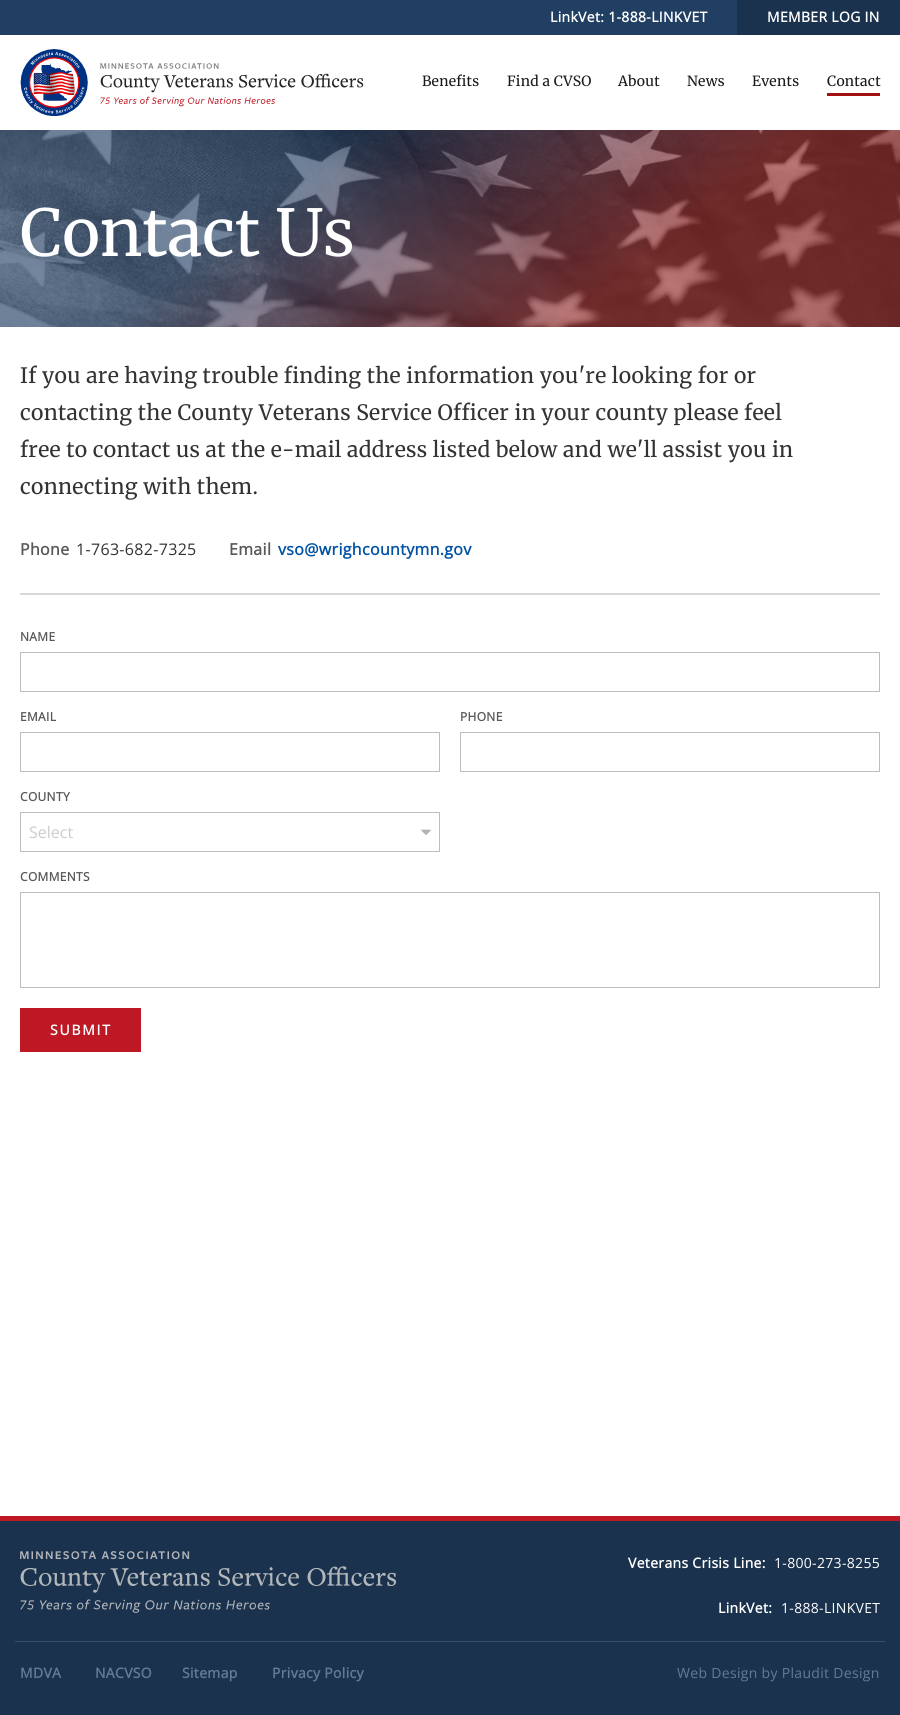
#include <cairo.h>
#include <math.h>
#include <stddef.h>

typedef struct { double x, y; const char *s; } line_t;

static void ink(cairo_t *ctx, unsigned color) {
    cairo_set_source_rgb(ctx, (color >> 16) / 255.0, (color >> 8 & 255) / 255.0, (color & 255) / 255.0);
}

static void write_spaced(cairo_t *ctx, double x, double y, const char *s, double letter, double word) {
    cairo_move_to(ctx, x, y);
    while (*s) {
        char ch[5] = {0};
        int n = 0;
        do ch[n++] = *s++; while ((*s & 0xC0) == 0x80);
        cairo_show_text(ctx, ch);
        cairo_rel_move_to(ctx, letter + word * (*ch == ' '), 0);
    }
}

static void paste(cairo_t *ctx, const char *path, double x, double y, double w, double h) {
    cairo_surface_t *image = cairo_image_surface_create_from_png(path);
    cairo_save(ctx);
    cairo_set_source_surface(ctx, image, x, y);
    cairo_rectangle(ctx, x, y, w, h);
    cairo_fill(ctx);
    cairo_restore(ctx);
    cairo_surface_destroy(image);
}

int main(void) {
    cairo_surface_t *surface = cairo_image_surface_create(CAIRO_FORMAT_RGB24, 900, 1715);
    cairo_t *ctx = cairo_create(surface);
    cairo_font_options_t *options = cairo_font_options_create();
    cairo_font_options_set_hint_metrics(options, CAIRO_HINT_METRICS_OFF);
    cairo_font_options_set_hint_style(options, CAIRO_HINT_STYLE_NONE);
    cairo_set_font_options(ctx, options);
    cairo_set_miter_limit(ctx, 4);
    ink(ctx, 0xFFFFFF);
    cairo_paint(ctx);
    ink(ctx, 0x213F62);
    cairo_rectangle(ctx, 0, 0, 737, 35);
    cairo_fill(ctx);
    cairo_select_font_face(ctx, "Open Sans", CAIRO_FONT_SLANT_NORMAL, CAIRO_FONT_WEIGHT_BOLD);
    cairo_set_font_size(ctx, 14);
    ink(ctx, 0xFFFFFF);
    write_spaced(ctx, 550, 22, "LinkVet: 1-888-LINKVET", 0.32, 0);
    ink(ctx, 0x1A324D);
    cairo_rectangle(ctx, 737, 0, 163, 35);
    cairo_fill(ctx);
    ink(ctx, 0xFFFFFF);
    write_spaced(ctx, 767, 22, "MEMBER LOG IN", 0.32, 0);
    paste(ctx, "media/1.png", 20, 49, 344, 67);
    cairo_select_font_face(ctx, "Merriweather Light", CAIRO_FONT_SLANT_NORMAL, CAIRO_FONT_WEIGHT_NORMAL);
    ink(ctx, 0x1A1A1A);
    {
        static const line_t items[] = {
            {422, 86, "Benefits"},
            {507, 86, "Find a CVSO"},
            {618, 86, "About"},
            {687, 86, "News"},
            {752, 86, "Events"},
            {827, 86, "Contact"},
        };
        for (size_t i = 0; i < sizeof items / sizeof *items; i++) {
            write_spaced(ctx, items[i].x, items[i].y, items[i].s, 0.25, 0);
        }
    }
    ink(ctx, 0xA31010);
    cairo_rectangle(ctx, 827, 93, 53, 3);
    cairo_fill(ctx);
    paste(ctx, "media/2.png", 0, 130, 900, 197);
    cairo_set_font_size(ctx, 64.5);
    ink(ctx, 0xFFFFFF);
    cairo_move_to(ctx, 20, 256);
    cairo_show_text(ctx, "Contact Us");
    cairo_set_font_size(ctx, 21.15);
    ink(ctx, 0x333333);
    {
        static const line_t items[] = {
            {20, 383, "If you are having trouble finding the information you're looking for or"},
            {20, 420, "contacting the County Veterans Service Officer in your county please feel"},
            {20, 457, "free to contact us at the e-mail address listed below and we'll assist you in"},
            {20, 494, "connecting with them."},
        };
        for (size_t i = 0; i < sizeof items / sizeof *items; i++) {
            write_spaced(ctx, items[i].x, items[i].y, items[i].s, 0.32, 0);
        }
    }
    cairo_select_font_face(ctx, "Open Sans", CAIRO_FONT_SLANT_NORMAL, CAIRO_FONT_WEIGHT_BOLD);
    cairo_set_font_size(ctx, 16);
    ink(ctx, 0x595959);
    write_spaced(ctx, 20, 555, "Phone", 0.32, 0);
    cairo_select_font_face(ctx, "Open Sans", CAIRO_FONT_SLANT_NORMAL, CAIRO_FONT_WEIGHT_NORMAL);
    ink(ctx, 0x333333);
    write_spaced(ctx, 76, 555, "1-763-682-7325", 0.32, 0);
    cairo_select_font_face(ctx, "Open Sans", CAIRO_FONT_SLANT_NORMAL, CAIRO_FONT_WEIGHT_BOLD);
    ink(ctx, 0x595959);
    write_spaced(ctx, 229, 555, "Email", 0.32, 0);
    ink(ctx, 0x0353A4);
    write_spaced(ctx, 278, 555, "vso@wrighcountymn.gov", 0.32, 0);
    ink(ctx, 0xD9D9D9);
    cairo_rectangle(ctx, 20, 593, 860, 2);
    cairo_fill(ctx);
    cairo_set_font_size(ctx, 12);
    ink(ctx, 0x595959);
    write_spaced(ctx, 20, 641, "NAME", 0.32, 0);
    cairo_rectangle(ctx, 20.5, 652.5, 859, 39);
    ink(ctx, 0xBCBDC0);
    cairo_set_line_width(ctx, 1);
    cairo_stroke(ctx);
    ink(ctx, 0x595959);
    write_spaced(ctx, 20, 721, "EMAIL", 0.32, 0);
    cairo_rectangle(ctx, 20.5, 732.5, 419, 39);
    ink(ctx, 0xBCBDC0);
    cairo_stroke(ctx);
    ink(ctx, 0x595959);
    write_spaced(ctx, 460, 721, "PHONE", 0.32, 0);
    cairo_rectangle(ctx, 460.5, 732.5, 419, 39);
    ink(ctx, 0xBCBDC0);
    cairo_stroke(ctx);
    ink(ctx, 0x595959);
    write_spaced(ctx, 20, 801, "COUNTY", 0.32, 0);
    cairo_rectangle(ctx, 20.5, 812.5, 419, 39);
    ink(ctx, 0xBCBDC0);
    cairo_stroke(ctx);
    cairo_select_font_face(ctx, "Open Sans", CAIRO_FONT_SLANT_NORMAL, CAIRO_FONT_WEIGHT_NORMAL);
    cairo_set_font_size(ctx, 16);
    ink(ctx, 0xCCCCCC);
    cairo_move_to(ctx, 29, 838);
    cairo_show_text(ctx, "Select");
    paste(ctx, "media/3.png", 421, 829, 10, 6);
    cairo_select_font_face(ctx, "Open Sans", CAIRO_FONT_SLANT_NORMAL, CAIRO_FONT_WEIGHT_BOLD);
    cairo_set_font_size(ctx, 12);
    ink(ctx, 0x595959);
    write_spaced(ctx, 20, 881, "COMMENTS", 0.32, 0);
    cairo_rectangle(ctx, 20.5, 892.5, 859, 95);
    ink(ctx, 0xBCBDC0);
    cairo_stroke(ctx);
    ink(ctx, 0xBD1824);
    cairo_rectangle(ctx, 20, 1008, 121, 44);
    cairo_fill(ctx);
    cairo_set_font_size(ctx, 14);
    ink(ctx, 0xFFFFFF);
    write_spaced(ctx, 50, 1035, "SUBMIT", 1.75, 0);
    ink(ctx, 0x1A324D);
    cairo_rectangle(ctx, 0, 1521, 900, 194);
    cairo_fill(ctx);
    ink(ctx, 0xBD1824);
    cairo_rectangle(ctx, 0, 1516, 900, 5);
    cairo_fill(ctx);
    paste(ctx, "media/4.png", 20, 1551, 376, 62);
    ink(ctx, 0xFFFFFF);
    write_spaced(ctx, 628, 1568, "Veterans Crisis Line:", 0.32, 0);
    cairo_select_font_face(ctx, "Open Sans", CAIRO_FONT_SLANT_NORMAL, CAIRO_FONT_WEIGHT_NORMAL);
    write_spaced(ctx, 774, 1568, "1-800-273-8255", 0.32, 0);
    cairo_select_font_face(ctx, "Open Sans", CAIRO_FONT_SLANT_NORMAL, CAIRO_FONT_WEIGHT_BOLD);
    write_spaced(ctx, 718, 1613, "LinkVet:", 0.32, 0);
    cairo_select_font_face(ctx, "Open Sans", CAIRO_FONT_SLANT_NORMAL, CAIRO_FONT_WEIGHT_NORMAL);
    write_spaced(ctx, 781, 1613, "1-888-LINKVET", 0.32, 0);
    ink(ctx, 0x394D65);
    cairo_rectangle(ctx, 15, 1641, 870, 1);
    cairo_fill(ctx);
    cairo_select_font_face(ctx, "Open Sans", CAIRO_FONT_SLANT_NORMAL, CAIRO_FONT_WEIGHT_BOLD);
    ink(ctx, 0x667A92);
    {
        static const line_t items[] = {
            {20, 1678, "MDVA"},
            {95, 1678, "NACVSO"},
            {182, 1678, "Sitemap"},
            {272, 1678, "Privacy Policy"},
        };
        for (size_t i = 0; i < sizeof items / sizeof *items; i++) {
            write_spaced(ctx, items[i].x, items[i].y, items[i].s, 0.32, 0);
        }
    }
    cairo_select_font_face(ctx, "Open Sans", CAIRO_FONT_SLANT_NORMAL, CAIRO_FONT_WEIGHT_NORMAL);
    write_spaced(ctx, 677, 1678, "Web Design by Plaudit Design", 0.32, 0);
    cairo_surface_write_to_png(surface, "image.png");
    cairo_font_options_destroy(options);
    cairo_destroy(ctx);
    cairo_surface_destroy(surface);
    return 0;
}
